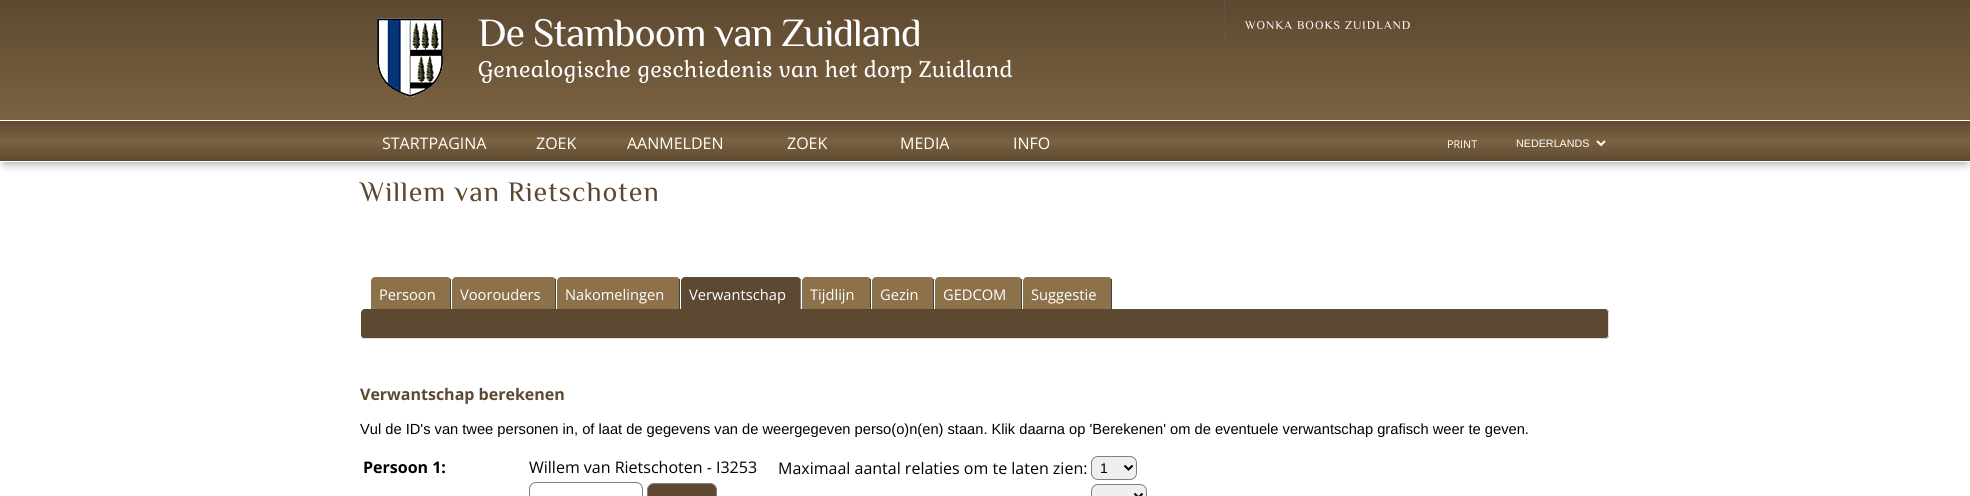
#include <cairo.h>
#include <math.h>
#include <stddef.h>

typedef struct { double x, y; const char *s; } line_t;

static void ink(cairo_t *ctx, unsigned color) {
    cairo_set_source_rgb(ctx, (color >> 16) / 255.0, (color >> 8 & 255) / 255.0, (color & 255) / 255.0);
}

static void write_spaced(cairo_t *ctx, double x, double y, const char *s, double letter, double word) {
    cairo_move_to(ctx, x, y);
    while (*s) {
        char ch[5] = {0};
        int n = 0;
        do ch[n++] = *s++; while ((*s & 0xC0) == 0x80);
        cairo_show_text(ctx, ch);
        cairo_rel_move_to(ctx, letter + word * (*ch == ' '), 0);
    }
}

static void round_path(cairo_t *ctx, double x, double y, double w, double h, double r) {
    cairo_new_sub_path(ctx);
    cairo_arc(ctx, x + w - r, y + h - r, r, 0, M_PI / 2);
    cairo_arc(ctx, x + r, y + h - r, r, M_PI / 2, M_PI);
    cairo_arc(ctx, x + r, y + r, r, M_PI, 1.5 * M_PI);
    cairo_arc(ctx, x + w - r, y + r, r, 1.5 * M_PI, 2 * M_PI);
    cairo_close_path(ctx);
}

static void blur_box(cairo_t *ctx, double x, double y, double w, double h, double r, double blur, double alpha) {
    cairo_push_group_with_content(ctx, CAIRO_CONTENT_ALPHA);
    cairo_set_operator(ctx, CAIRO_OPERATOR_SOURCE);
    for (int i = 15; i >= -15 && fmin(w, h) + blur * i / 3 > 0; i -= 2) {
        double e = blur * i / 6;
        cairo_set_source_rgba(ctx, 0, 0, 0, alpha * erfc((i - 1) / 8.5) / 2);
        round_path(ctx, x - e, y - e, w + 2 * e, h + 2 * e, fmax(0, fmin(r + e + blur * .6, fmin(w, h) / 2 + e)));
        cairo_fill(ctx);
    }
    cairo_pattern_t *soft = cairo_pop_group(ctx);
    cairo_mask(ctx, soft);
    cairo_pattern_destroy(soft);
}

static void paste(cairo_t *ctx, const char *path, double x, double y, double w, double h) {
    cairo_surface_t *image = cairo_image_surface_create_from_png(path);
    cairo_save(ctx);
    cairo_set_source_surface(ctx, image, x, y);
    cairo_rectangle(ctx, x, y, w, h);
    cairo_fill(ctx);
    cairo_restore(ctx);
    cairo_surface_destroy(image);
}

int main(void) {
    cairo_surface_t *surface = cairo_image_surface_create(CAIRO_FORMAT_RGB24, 1970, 496);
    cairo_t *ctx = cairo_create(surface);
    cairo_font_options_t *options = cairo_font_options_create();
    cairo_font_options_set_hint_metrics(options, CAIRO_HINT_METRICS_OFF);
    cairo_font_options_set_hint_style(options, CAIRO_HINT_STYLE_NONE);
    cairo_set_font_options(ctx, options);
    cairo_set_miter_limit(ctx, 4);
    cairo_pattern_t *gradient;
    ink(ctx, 0xFFFFFF);
    cairo_paint(ctx);
    gradient = cairo_pattern_create_linear(985, 0, 985, 120);
    cairo_pattern_add_color_stop_rgba(gradient, 0, 0.365, 0.286, 0.192, 1);
    cairo_pattern_add_color_stop_rgba(gradient, 1, 0.482, 0.384, 0.255, 1);
    cairo_set_source(ctx, gradient);
    cairo_pattern_destroy(gradient);
    cairo_rectangle(ctx, 0, 0, 1970, 120);
    cairo_fill(ctx);
    paste(ctx, "media/1.png", 377, 18, 66, 79);
    cairo_select_font_face(ctx, "Philosopher", CAIRO_FONT_SLANT_NORMAL, CAIRO_FONT_WEIGHT_NORMAL);
    cairo_set_font_size(ctx, 40);
    ink(ctx, 0xFFFFFF);
    write_spaced(ctx, 478, 46, "De Stamboom van Zuidland", -1, 0);
    cairo_select_font_face(ctx, "Gabriela", CAIRO_FONT_SLANT_NORMAL, CAIRO_FONT_WEIGHT_NORMAL);
    cairo_set_font_size(ctx, 22);
    cairo_move_to(ctx, 478, 77);
    cairo_show_text(ctx, "Genealogische geschiedenis van het dorp Zuidland");
    cairo_new_path(ctx);
    cairo_move_to(ctx, 1224.5, 0);
    cairo_line_to(ctx, 1224.5, 40);
    ink(ctx, 0x575B5F);
    cairo_set_line_width(ctx, 1);
    cairo_set_dash(ctx, (double[]){3, 2.29}, 2, 0);
    cairo_stroke(ctx);
    cairo_select_font_face(ctx, "Philosopher", CAIRO_FONT_SLANT_NORMAL, CAIRO_FONT_WEIGHT_NORMAL);
    cairo_set_font_size(ctx, 12);
    ink(ctx, 0xFFFFFF);
    write_spaced(ctx, 1245, 29, "WONKA BOOKS ZUIDLAND", 1, 0);
    ink(ctx, 0x000000);
    blur_box(ctx, 4, 129, 1962, 34, 0, 5, 0.4);
    gradient = cairo_pattern_create_linear(985, 121, 985, 161);
    cairo_pattern_add_color_stop_rgba(gradient, 0, 0.365, 0.286, 0.192, 1);
    cairo_pattern_add_color_stop_rgba(gradient, 0.5, 0.482, 0.384, 0.255, 1);
    cairo_pattern_add_color_stop_rgba(gradient, 1, 0.365, 0.286, 0.192, 1);
    cairo_set_source(ctx, gradient);
    cairo_pattern_destroy(gradient);
    cairo_rectangle(ctx, 0, 121, 1970, 40);
    cairo_fill(ctx);
    ink(ctx, 0xFFFFFF);
    cairo_rectangle(ctx, 0, 120, 1970, 1);
    cairo_fill(ctx);
    cairo_rectangle(ctx, 0, 161, 1970, 1);
    cairo_fill(ctx);
    cairo_select_font_face(ctx, "Open Sans", CAIRO_FONT_SLANT_NORMAL, CAIRO_FONT_WEIGHT_NORMAL);
    cairo_set_font_size(ctx, 16);
    {
        static const line_t items[] = {
            {382, 149, "STARTPAGINA"},
            {536, 149, "ZOEK"},
            {627, 149, "AANMELDEN"},
            {787, 149, "ZOEK"},
            {900, 149, "MEDIA"},
            {1013, 149, "INFO"},
        };
        for (size_t i = 0; i < sizeof items / sizeof *items; i++) {
            cairo_move_to(ctx, items[i].x, items[i].y);
            cairo_show_text(ctx, items[i].s);
        }
    }
    cairo_set_font_size(ctx, 10.75);
    cairo_move_to(ctx, 1447, 148);
    cairo_show_text(ctx, "PRINT");
    cairo_new_path(ctx);
    cairo_move_to(ctx, 1597, 141);
    cairo_line_to(ctx, 1601, 145);
    cairo_line_to(ctx, 1605, 141);
    cairo_set_line_width(ctx, 2);
    cairo_set_dash(ctx, NULL, 0, 0);
    cairo_stroke(ctx);
    cairo_select_font_face(ctx, "Liberation Sans", CAIRO_FONT_SLANT_NORMAL, CAIRO_FONT_WEIGHT_NORMAL);
    cairo_move_to(ctx, 1516, 147);
    cairo_show_text(ctx, "NEDERLANDS");
    cairo_select_font_face(ctx, "Philosopher", CAIRO_FONT_SLANT_NORMAL, CAIRO_FONT_WEIGHT_NORMAL);
    cairo_set_font_size(ctx, 28);
    ink(ctx, 0x5D4931);
    write_spaced(ctx, 360, 201, "Willem van Rietschoten", 1, 0);
    ink(ctx, 0x8D714A);
    cairo_new_path(ctx);
    cairo_move_to(ctx, 375, 277);
    cairo_line_to(ctx, 447, 277);
    cairo_curve_to(ctx, 449, 277, 451, 279, 451, 281);
    cairo_line_to(ctx, 451, 309);
    cairo_line_to(ctx, 371, 309);
    cairo_line_to(ctx, 371, 281);
    cairo_curve_to(ctx, 371, 279, 373, 277, 375, 277);
    cairo_close_path(ctx);
    cairo_fill(ctx);
    ink(ctx, 0x444444);
    cairo_rectangle(ctx, 450, 279, 1, 30);
    cairo_fill(ctx);
    cairo_select_font_face(ctx, "Open Sans", CAIRO_FONT_SLANT_NORMAL, CAIRO_FONT_WEIGHT_NORMAL);
    cairo_set_font_size(ctx, 14.67);
    ink(ctx, 0xFFFFFF);
    cairo_move_to(ctx, 379, 300);
    cairo_show_text(ctx, "Persoon");
    ink(ctx, 0x8D714A);
    cairo_new_path(ctx);
    cairo_move_to(ctx, 456, 277);
    cairo_line_to(ctx, 552, 277);
    cairo_curve_to(ctx, 554, 277, 556, 279, 556, 281);
    cairo_line_to(ctx, 556, 309);
    cairo_line_to(ctx, 452, 309);
    cairo_line_to(ctx, 452, 281);
    cairo_curve_to(ctx, 452, 279, 454, 277, 456, 277);
    cairo_close_path(ctx);
    cairo_fill(ctx);
    ink(ctx, 0x444444);
    cairo_rectangle(ctx, 555, 279, 1, 30);
    cairo_fill(ctx);
    ink(ctx, 0xFFFFFF);
    cairo_move_to(ctx, 460, 300);
    cairo_show_text(ctx, "Voorouders");
    ink(ctx, 0x8D714A);
    cairo_new_path(ctx);
    cairo_move_to(ctx, 561, 277);
    cairo_line_to(ctx, 676, 277);
    cairo_curve_to(ctx, 678, 277, 680, 279, 680, 281);
    cairo_line_to(ctx, 680, 309);
    cairo_line_to(ctx, 557, 309);
    cairo_line_to(ctx, 557, 281);
    cairo_curve_to(ctx, 557, 279, 559, 277, 561, 277);
    cairo_close_path(ctx);
    cairo_fill(ctx);
    ink(ctx, 0x444444);
    cairo_rectangle(ctx, 679, 279, 1, 30);
    cairo_fill(ctx);
    ink(ctx, 0xFFFFFF);
    cairo_move_to(ctx, 565, 300);
    cairo_show_text(ctx, "Nakomelingen");
    ink(ctx, 0x5D4931);
    cairo_new_path(ctx);
    cairo_move_to(ctx, 685, 277);
    cairo_line_to(ctx, 797, 277);
    cairo_curve_to(ctx, 799, 277, 801, 279, 801, 281);
    cairo_line_to(ctx, 801, 309);
    cairo_line_to(ctx, 681, 309);
    cairo_line_to(ctx, 681, 281);
    cairo_curve_to(ctx, 681, 279, 683, 277, 685, 277);
    cairo_close_path(ctx);
    cairo_fill(ctx);
    ink(ctx, 0x777777);
    cairo_rectangle(ctx, 800, 279, 1, 30);
    cairo_fill(ctx);
    ink(ctx, 0xFFFFFF);
    cairo_move_to(ctx, 689, 300);
    cairo_show_text(ctx, "Verwantschap");
    ink(ctx, 0x8D714A);
    cairo_new_path(ctx);
    cairo_move_to(ctx, 806, 277);
    cairo_line_to(ctx, 867, 277);
    cairo_curve_to(ctx, 869, 277, 871, 279, 871, 281);
    cairo_line_to(ctx, 871, 309);
    cairo_line_to(ctx, 802, 309);
    cairo_line_to(ctx, 802, 281);
    cairo_curve_to(ctx, 802, 279, 804, 277, 806, 277);
    cairo_close_path(ctx);
    cairo_fill(ctx);
    ink(ctx, 0x444444);
    cairo_rectangle(ctx, 870, 279, 1, 30);
    cairo_fill(ctx);
    ink(ctx, 0xFFFFFF);
    cairo_move_to(ctx, 810, 300);
    cairo_show_text(ctx, "Tijdlijn");
    ink(ctx, 0x8D714A);
    cairo_new_path(ctx);
    cairo_move_to(ctx, 876, 277);
    cairo_line_to(ctx, 930, 277);
    cairo_curve_to(ctx, 932, 277, 934, 279, 934, 281);
    cairo_line_to(ctx, 934, 309);
    cairo_line_to(ctx, 872, 309);
    cairo_line_to(ctx, 872, 281);
    cairo_curve_to(ctx, 872, 279, 874, 277, 876, 277);
    cairo_close_path(ctx);
    cairo_fill(ctx);
    ink(ctx, 0x444444);
    cairo_rectangle(ctx, 933, 279, 1, 30);
    cairo_fill(ctx);
    ink(ctx, 0xFFFFFF);
    cairo_move_to(ctx, 880, 300);
    cairo_show_text(ctx, "Gezin");
    ink(ctx, 0x8D714A);
    cairo_new_path(ctx);
    cairo_move_to(ctx, 939, 277);
    cairo_line_to(ctx, 1018, 277);
    cairo_curve_to(ctx, 1020, 277, 1022, 279, 1022, 281);
    cairo_line_to(ctx, 1022, 309);
    cairo_line_to(ctx, 935, 309);
    cairo_line_to(ctx, 935, 281);
    cairo_curve_to(ctx, 935, 279, 937, 277, 939, 277);
    cairo_close_path(ctx);
    cairo_fill(ctx);
    ink(ctx, 0x444444);
    cairo_rectangle(ctx, 1021, 279, 1, 30);
    cairo_fill(ctx);
    ink(ctx, 0xFFFFFF);
    cairo_move_to(ctx, 943, 300);
    cairo_show_text(ctx, "GEDCOM");
    ink(ctx, 0x8D714A);
    cairo_new_path(ctx);
    cairo_move_to(ctx, 1027, 277);
    cairo_line_to(ctx, 1108, 277);
    cairo_curve_to(ctx, 1110, 277, 1112, 279, 1112, 281);
    cairo_line_to(ctx, 1112, 309);
    cairo_line_to(ctx, 1023, 309);
    cairo_line_to(ctx, 1023, 281);
    cairo_curve_to(ctx, 1023, 279, 1025, 277, 1027, 277);
    cairo_close_path(ctx);
    cairo_fill(ctx);
    ink(ctx, 0x444444);
    cairo_rectangle(ctx, 1111, 279, 1, 30);
    cairo_fill(ctx);
    ink(ctx, 0xFFFFFF);
    cairo_move_to(ctx, 1031, 300);
    cairo_show_text(ctx, "Suggestie");
    ink(ctx, 0x5D4931);
    round_path(ctx, 361, 309, 1248, 30, 4);
    cairo_fill(ctx);
    ink(ctx, 0xDDDDDD);
    cairo_set_fill_rule(ctx, CAIRO_FILL_RULE_EVEN_ODD);
    cairo_new_path(ctx);
    cairo_move_to(ctx, 365, 309);
    cairo_line_to(ctx, 1605, 309);
    cairo_curve_to(ctx, 1607, 309, 1609, 311, 1609, 313);
    cairo_line_to(ctx, 1609, 335);
    cairo_curve_to(ctx, 1609, 337, 1607, 339, 1605, 339);
    cairo_line_to(ctx, 365, 339);
    cairo_curve_to(ctx, 363, 339, 361, 337, 361, 335);
    cairo_line_to(ctx, 361, 313);
    cairo_curve_to(ctx, 361, 311, 363, 309, 365, 309);
    cairo_close_path(ctx);
    cairo_move_to(ctx, 365, 309);
    cairo_line_to(ctx, 1605, 309);
    cairo_curve_to(ctx, 1607, 309, 1608, 311, 1608, 313);
    cairo_line_to(ctx, 1608, 335);
    cairo_curve_to(ctx, 1608, 337, 1607, 338, 1605, 338);
    cairo_line_to(ctx, 365, 338);
    cairo_curve_to(ctx, 363, 338, 361, 337, 361, 335);
    cairo_line_to(ctx, 361, 313);
    cairo_curve_to(ctx, 361, 311, 363, 309, 365, 309);
    cairo_close_path(ctx);
    cairo_fill(ctx);
    cairo_select_font_face(ctx, "Open Sans", CAIRO_FONT_SLANT_NORMAL, CAIRO_FONT_WEIGHT_BOLD);
    cairo_set_font_size(ctx, 16);
    ink(ctx, 0x5D4931);
    cairo_move_to(ctx, 360, 400);
    cairo_show_text(ctx, "Verwantschap berekenen");
    cairo_select_font_face(ctx, "Liberation Sans", CAIRO_FONT_SLANT_NORMAL, CAIRO_FONT_WEIGHT_NORMAL);
    cairo_set_font_size(ctx, 14.67);
    ink(ctx, 0x000000);
    cairo_move_to(ctx, 360, 434);
    cairo_show_text(ctx, "Vul de ID's van twee personen in, of laat de gegevens van de weergegeven perso(o)n(en) staan. Klik daarna op 'Berekenen' om de eventuele verwantschap grafisch weer te geven.");
    cairo_select_font_face(ctx, "Open Sans", CAIRO_FONT_SLANT_NORMAL, CAIRO_FONT_WEIGHT_BOLD);
    cairo_set_font_size(ctx, 16);
    cairo_move_to(ctx, 363, 473);
    cairo_show_text(ctx, "Persoon 1:");
    cairo_select_font_face(ctx, "Open Sans", CAIRO_FONT_SLANT_NORMAL, CAIRO_FONT_WEIGHT_NORMAL);
    cairo_move_to(ctx, 529, 473);
    cairo_show_text(ctx, "Willem van Rietschoten - I3253");
    round_path(ctx, 529.5, 482.5, 113, 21, 6.5);
    ink(ctx, 0x808080);
    cairo_set_line_width(ctx, 1);
    cairo_stroke(ctx);
    ink(ctx, 0x5D4931);
    round_path(ctx, 647.5, 483.5, 69, 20, 6.5);
    cairo_fill_preserve(ctx);
    ink(ctx, 0x808080);
    cairo_stroke(ctx);
    ink(ctx, 0x000000);
    cairo_move_to(ctx, 778, 474);
    cairo_show_text(ctx, "Maximaal aantal relaties om te laten zien:");
    ink(ctx, 0xEFEFEF);
    round_path(ctx, 1091.5, 456.5, 45, 23, 6.5);
    cairo_fill_preserve(ctx);
    ink(ctx, 0x808080);
    cairo_stroke(ctx);
    cairo_new_path(ctx);
    cairo_move_to(ctx, 1124.5, 465.5);
    cairo_line_to(ctx, 1128.5, 469.5);
    cairo_line_to(ctx, 1132.5, 465.5);
    ink(ctx, 0x000000);
    cairo_set_line_width(ctx, 2);
    cairo_stroke(ctx);
    cairo_select_font_face(ctx, "Liberation Sans", CAIRO_FONT_SLANT_NORMAL, CAIRO_FONT_WEIGHT_NORMAL);
    cairo_set_font_size(ctx, 14);
    cairo_move_to(ctx, 1100, 473);
    cairo_show_text(ctx, "1");
    ink(ctx, 0xEFEFEF);
    round_path(ctx, 1091.5, 484.5, 55, 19, 6.5);
    cairo_fill_preserve(ctx);
    ink(ctx, 0x808080);
    cairo_set_line_width(ctx, 1);
    cairo_stroke(ctx);
    cairo_new_path(ctx);
    cairo_move_to(ctx, 1134.5, 493.5);
    cairo_line_to(ctx, 1138.5, 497.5);
    cairo_line_to(ctx, 1142.5, 493.5);
    ink(ctx, 0x000000);
    cairo_set_line_width(ctx, 2);
    cairo_stroke(ctx);
    cairo_surface_write_to_png(surface, "image.png");
    cairo_font_options_destroy(options);
    cairo_destroy(ctx);
    cairo_surface_destroy(surface);
    return 0;
}
